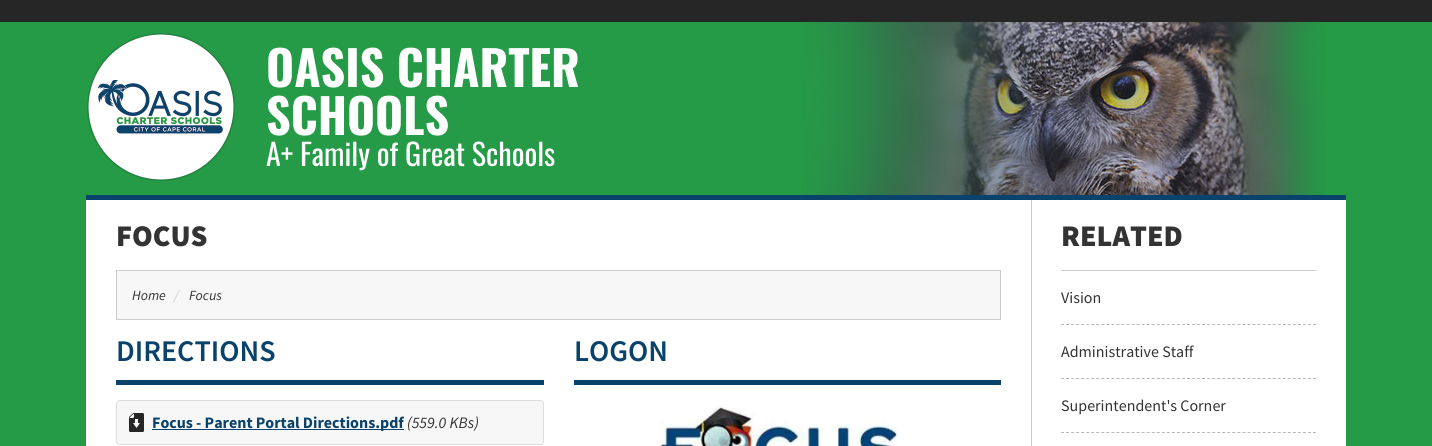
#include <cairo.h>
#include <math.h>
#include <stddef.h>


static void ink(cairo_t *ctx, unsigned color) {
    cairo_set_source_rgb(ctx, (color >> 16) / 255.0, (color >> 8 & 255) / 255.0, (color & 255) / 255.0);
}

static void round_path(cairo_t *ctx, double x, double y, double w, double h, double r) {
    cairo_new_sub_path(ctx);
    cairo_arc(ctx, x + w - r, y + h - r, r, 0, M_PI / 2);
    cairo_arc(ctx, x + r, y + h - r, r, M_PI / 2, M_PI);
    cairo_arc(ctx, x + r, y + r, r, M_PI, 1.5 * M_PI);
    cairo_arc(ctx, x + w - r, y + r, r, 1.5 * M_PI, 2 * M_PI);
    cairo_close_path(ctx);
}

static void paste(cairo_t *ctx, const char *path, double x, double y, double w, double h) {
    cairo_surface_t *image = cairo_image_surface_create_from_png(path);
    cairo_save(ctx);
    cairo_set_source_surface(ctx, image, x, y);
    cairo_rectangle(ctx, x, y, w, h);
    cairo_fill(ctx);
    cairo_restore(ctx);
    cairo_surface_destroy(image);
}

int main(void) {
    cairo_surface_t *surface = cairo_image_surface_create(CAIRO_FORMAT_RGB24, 1432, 446);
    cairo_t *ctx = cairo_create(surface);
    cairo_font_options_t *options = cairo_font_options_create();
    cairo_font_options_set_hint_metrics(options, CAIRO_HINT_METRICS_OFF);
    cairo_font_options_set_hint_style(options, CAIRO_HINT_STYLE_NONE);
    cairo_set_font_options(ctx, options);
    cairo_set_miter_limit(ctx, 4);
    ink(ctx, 0x262626);
    cairo_paint(ctx);
    ink(ctx, 0x259A47);
    cairo_rectangle(ctx, 0, 22, 1432, 424);
    cairo_fill(ctx);
    paste(ctx, "media/1.png", 801, 22, 525, 173);
    ink(ctx, 0x09426A);
    cairo_rectangle(ctx, 86, 195, 1260, 5);
    cairo_fill(ctx);
    paste(ctx, "media/2.png", 87, 33, 148, 148);
    cairo_select_font_face(ctx, "Oswald", CAIRO_FONT_SLANT_NORMAL, CAIRO_FONT_WEIGHT_BOLD);
    cairo_set_font_size(ctx, 48);
    ink(ctx, 0xFFFFFF);
    cairo_move_to(ctx, 266, 87);
    cairo_show_text(ctx, "OASIS CHARTER");
    cairo_move_to(ctx, 266, 135);
    cairo_show_text(ctx, "SCHOOLS");
    cairo_select_font_face(ctx, "Oswald", CAIRO_FONT_SLANT_NORMAL, CAIRO_FONT_WEIGHT_NORMAL);
    cairo_set_font_size(ctx, 30);
    cairo_move_to(ctx, 266, 166);
    cairo_show_text(ctx, "A+ Family of Great Schools");
    cairo_rectangle(ctx, 86, 200, 1260, 246);
    cairo_fill(ctx);
    cairo_select_font_face(ctx, "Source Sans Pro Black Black", CAIRO_FONT_SLANT_NORMAL, CAIRO_FONT_WEIGHT_NORMAL);
    ink(ctx, 0x333333);
    cairo_move_to(ctx, 116, 246);
    cairo_show_text(ctx, "FOCUS");
    ink(ctx, 0xF7F7F7);
    cairo_rectangle(ctx, 116.5, 270.5, 884, 49);
    cairo_fill_preserve(ctx);
    ink(ctx, 0xCCCCCC);
    cairo_set_line_width(ctx, 1);
    cairo_stroke(ctx);
    cairo_select_font_face(ctx, "Source Sans Pro", CAIRO_FONT_SLANT_ITALIC, CAIRO_FONT_WEIGHT_NORMAL);
    cairo_set_font_size(ctx, 14);
    ink(ctx, 0x333333);
    cairo_move_to(ctx, 132, 300);
    cairo_show_text(ctx, "Home");
    ink(ctx, 0xCCCCCC);
    cairo_move_to(ctx, 174, 300);
    cairo_show_text(ctx, "/");
    ink(ctx, 0x333333);
    cairo_move_to(ctx, 189, 300);
    cairo_show_text(ctx, "Focus");
    ink(ctx, 0x09426A);
    cairo_rectangle(ctx, 116, 380, 428, 5);
    cairo_fill(ctx);
    cairo_select_font_face(ctx, "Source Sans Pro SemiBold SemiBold", CAIRO_FONT_SLANT_NORMAL, CAIRO_FONT_WEIGHT_NORMAL);
    cairo_set_font_size(ctx, 30);
    cairo_move_to(ctx, 116, 361);
    cairo_show_text(ctx, "DIRECTIONS");
    ink(ctx, 0xF7F7F7);
    round_path(ctx, 116, 400, 428, 45, 4);
    cairo_fill(ctx);
    paste(ctx, "media/3.png", 129, 413, 15, 19);
    round_path(ctx, 116.5, 400.5, 427, 44, 3.5);
    ink(ctx, 0xDDDDDD);
    cairo_stroke(ctx);
    ink(ctx, 0x09426A);
    cairo_rectangle(ctx, 152, 429, 252, 1);
    cairo_fill(ctx);
    cairo_select_font_face(ctx, "Source Sans Pro", CAIRO_FONT_SLANT_NORMAL, CAIRO_FONT_WEIGHT_BOLD);
    cairo_set_font_size(ctx, 16);
    cairo_move_to(ctx, 152, 428);
    cairo_show_text(ctx, "Focus - Parent Portal Directions.pdf");
    cairo_select_font_face(ctx, "Source Sans Pro", CAIRO_FONT_SLANT_ITALIC, CAIRO_FONT_WEIGHT_NORMAL);
    ink(ctx, 0x333333);
    cairo_move_to(ctx, 407, 428);
    cairo_show_text(ctx, "(559.0 KBs)");
    ink(ctx, 0x09426A);
    cairo_rectangle(ctx, 574, 380, 427, 5);
    cairo_fill(ctx);
    cairo_select_font_face(ctx, "Source Sans Pro SemiBold SemiBold", CAIRO_FONT_SLANT_NORMAL, CAIRO_FONT_WEIGHT_NORMAL);
    cairo_set_font_size(ctx, 30);
    cairo_move_to(ctx, 574, 361);
    cairo_show_text(ctx, "LOGON");
    paste(ctx, "media/4.png", 659, 407, 239, 39);
    ink(ctx, 0xCCCCCC);
    cairo_rectangle(ctx, 1031, 200, 1, 246);
    cairo_fill(ctx);
    cairo_rectangle(ctx, 1061, 270, 255, 1);
    cairo_fill(ctx);
    cairo_select_font_face(ctx, "Source Sans Pro Black Black", CAIRO_FONT_SLANT_NORMAL, CAIRO_FONT_WEIGHT_NORMAL);
    ink(ctx, 0x333333);
    cairo_move_to(ctx, 1061, 246);
    cairo_show_text(ctx, "RELATED");
    cairo_new_path(ctx);
    cairo_move_to(ctx, 1061, 324.5);
    cairo_line_to(ctx, 1316, 324.5);
    ink(ctx, 0xB9B9B9);
    cairo_set_dash(ctx, (double[]){3, 2.04}, 2, 0);
    cairo_stroke(ctx);
    cairo_select_font_face(ctx, "Source Sans Pro", CAIRO_FONT_SLANT_NORMAL, CAIRO_FONT_WEIGHT_NORMAL);
    cairo_set_font_size(ctx, 16);
    ink(ctx, 0x333333);
    cairo_move_to(ctx, 1061, 303);
    cairo_show_text(ctx, "Vision");
    cairo_new_path(ctx);
    cairo_move_to(ctx, 1061, 378.5);
    cairo_line_to(ctx, 1316, 378.5);
    ink(ctx, 0xB9B9B9);
    cairo_stroke(ctx);
    ink(ctx, 0x333333);
    cairo_move_to(ctx, 1061, 357);
    cairo_show_text(ctx, "Administrative Staff");
    cairo_new_path(ctx);
    cairo_move_to(ctx, 1061, 432.5);
    cairo_line_to(ctx, 1316, 432.5);
    ink(ctx, 0xB9B9B9);
    cairo_stroke(ctx);
    ink(ctx, 0x333333);
    cairo_move_to(ctx, 1061, 411);
    cairo_show_text(ctx, "Superintendent's Corner");
    cairo_surface_write_to_png(surface, "image.png");
    cairo_font_options_destroy(options);
    cairo_destroy(ctx);
    cairo_surface_destroy(surface);
    return 0;
}
